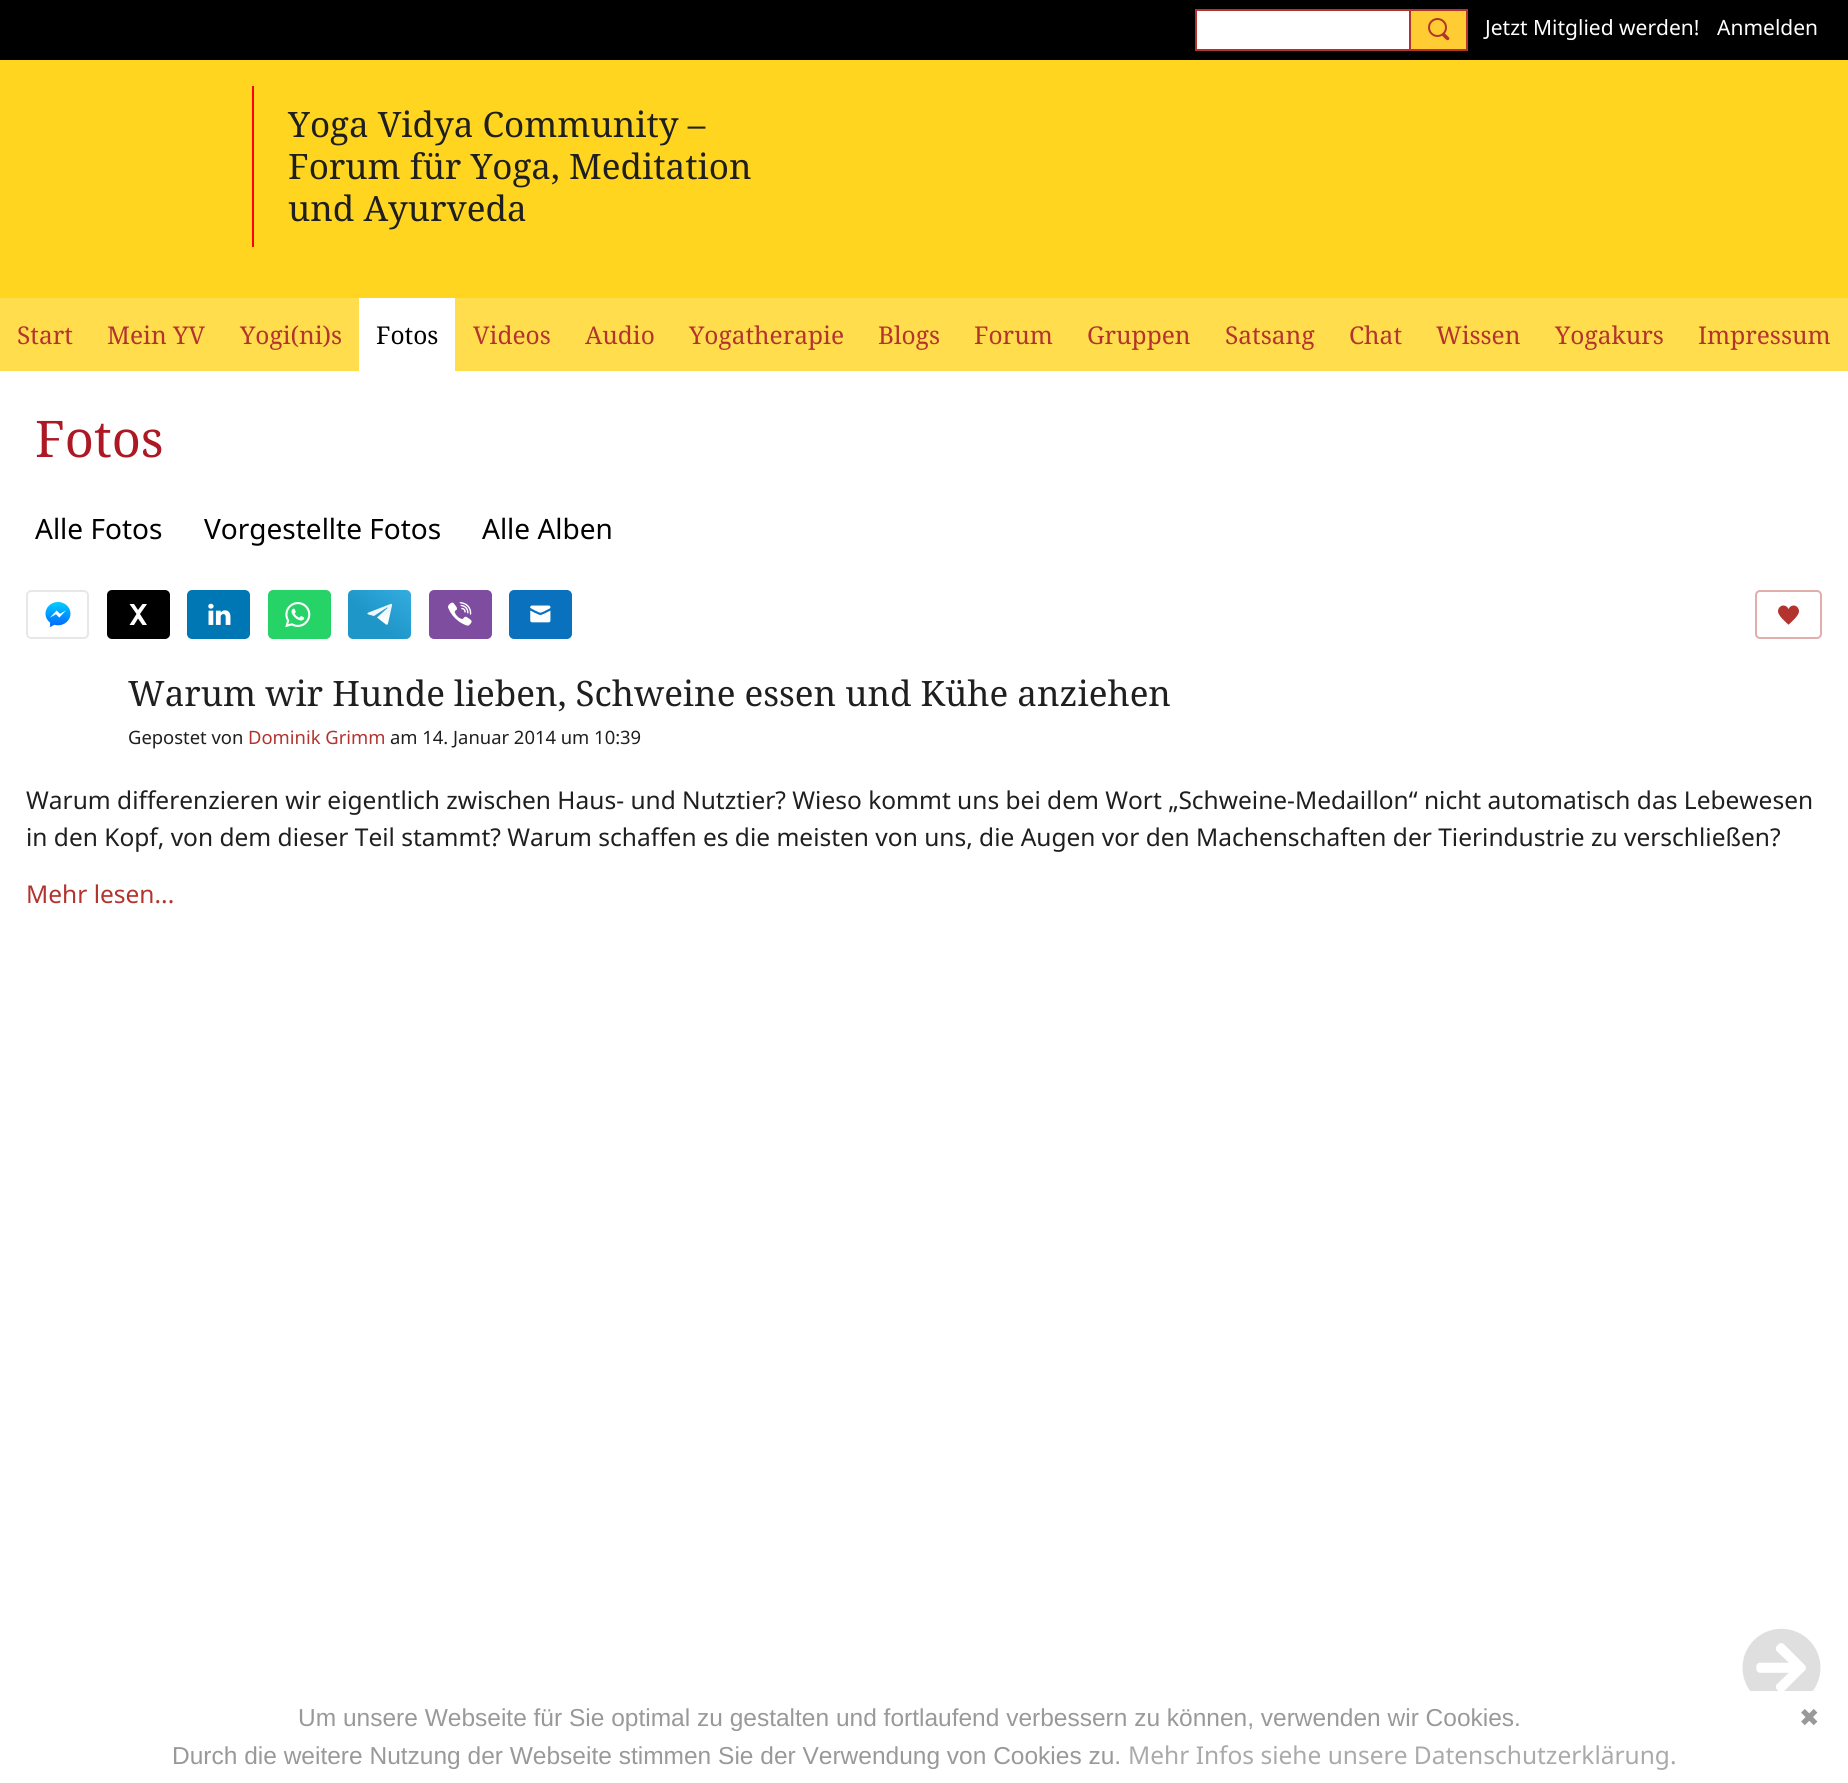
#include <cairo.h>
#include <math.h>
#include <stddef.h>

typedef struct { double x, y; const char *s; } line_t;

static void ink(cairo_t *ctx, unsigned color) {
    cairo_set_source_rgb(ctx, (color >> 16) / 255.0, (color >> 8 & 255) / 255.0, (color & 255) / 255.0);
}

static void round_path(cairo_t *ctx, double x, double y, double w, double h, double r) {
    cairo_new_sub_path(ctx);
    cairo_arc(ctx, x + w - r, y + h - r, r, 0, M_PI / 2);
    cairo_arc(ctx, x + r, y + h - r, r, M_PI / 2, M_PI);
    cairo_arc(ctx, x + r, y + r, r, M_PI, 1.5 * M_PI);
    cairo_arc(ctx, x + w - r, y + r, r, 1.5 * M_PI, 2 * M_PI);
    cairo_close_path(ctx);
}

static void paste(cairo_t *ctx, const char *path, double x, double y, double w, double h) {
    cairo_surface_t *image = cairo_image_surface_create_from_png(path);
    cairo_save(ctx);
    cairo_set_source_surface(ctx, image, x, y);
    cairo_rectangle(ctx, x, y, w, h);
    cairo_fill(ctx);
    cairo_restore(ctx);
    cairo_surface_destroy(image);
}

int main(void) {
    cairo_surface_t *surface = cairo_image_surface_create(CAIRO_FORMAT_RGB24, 1848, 1783);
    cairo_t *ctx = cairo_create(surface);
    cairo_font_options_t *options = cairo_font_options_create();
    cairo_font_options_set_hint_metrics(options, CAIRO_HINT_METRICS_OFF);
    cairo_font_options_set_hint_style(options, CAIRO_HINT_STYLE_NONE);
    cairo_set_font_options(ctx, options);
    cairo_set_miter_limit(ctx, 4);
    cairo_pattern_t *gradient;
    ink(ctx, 0xFFD520);
    cairo_paint(ctx);
    ink(ctx, 0x000000);
    cairo_rectangle(ctx, 0, 0, 1848, 60);
    cairo_fill(ctx);
    ink(ctx, 0xFFFFFF);
    cairo_rectangle(ctx, 1196, 10, 214, 40);
    cairo_fill_preserve(ctx);
    ink(ctx, 0xB3342E);
    cairo_stroke(ctx);
    ink(ctx, 0xFFCC33);
    cairo_rectangle(ctx, 1410, 10, 57, 40);
    cairo_fill_preserve(ctx);
    ink(ctx, 0xB3342E);
    cairo_stroke(ctx);
    cairo_arc(ctx, 1437.5, 27.5, 8.5, 0, 2 * M_PI);
    cairo_stroke(ctx);
    cairo_new_path(ctx);
    cairo_move_to(ctx, 1445, 33.5);
    cairo_line_to(ctx, 1449, 37.5);
    cairo_curve_to(ctx, 1449.5, 38, 1449.5, 39, 1449, 39.5);
    cairo_curve_to(ctx, 1447.5, 42, 1444, 37.5, 1442.5, 36);
    cairo_curve_to(ctx, 1441, 34.5, 1443.5, 32, 1445, 33.5);
    cairo_close_path(ctx);
    cairo_fill(ctx);
    cairo_select_font_face(ctx, "Noto Sans", CAIRO_FONT_SLANT_NORMAL, CAIRO_FONT_WEIGHT_NORMAL);
    cairo_set_font_size(ctx, 21);
    ink(ctx, 0xFFFFFF);
    cairo_move_to(ctx, 1485, 35);
    cairo_show_text(ctx, "Jetzt Mitglied werden!");
    cairo_move_to(ctx, 1717, 35);
    cairo_show_text(ctx, "Anmelden");
    ink(ctx, 0xFF0000);
    cairo_rectangle(ctx, 252, 86, 2, 161);
    cairo_fill(ctx);
    cairo_select_font_face(ctx, "Noto Serif", CAIRO_FONT_SLANT_NORMAL, CAIRO_FONT_WEIGHT_NORMAL);
    cairo_set_font_size(ctx, 35);
    ink(ctx, 0x1F1F1F);
    {
        static const line_t items[] = {
            {288, 137, "Yoga Vidya Community –"},
            {288, 179, "Forum für Yoga, Meditation"},
            {288, 221, "und Ayurveda"},
        };
        for (size_t i = 0; i < sizeof items / sizeof *items; i++) {
            cairo_move_to(ctx, items[i].x, items[i].y);
            cairo_show_text(ctx, items[i].s);
        }
    }
    ink(ctx, 0xFFDD4D);
    cairo_rectangle(ctx, 0, 298, 1848, 73);
    cairo_fill(ctx);
    cairo_set_font_size(ctx, 24.5);
    ink(ctx, 0xB3342E);
    {
        static const line_t items[] = {
            {17, 344, "Start"},
            {107, 344, "Mein YV"},
            {240, 344, "Yogi(ni)s"},
        };
        for (size_t i = 0; i < sizeof items / sizeof *items; i++) {
            cairo_move_to(ctx, items[i].x, items[i].y);
            cairo_show_text(ctx, items[i].s);
        }
    }
    ink(ctx, 0xFFFFFF);
    cairo_rectangle(ctx, 359, 298, 96, 73);
    cairo_fill(ctx);
    ink(ctx, 0x000000);
    cairo_move_to(ctx, 376, 344);
    cairo_show_text(ctx, "Fotos");
    ink(ctx, 0xB3342E);
    {
        static const line_t items[] = {
            {473, 344, "Videos"},
            {585, 344, "Audio"},
            {689, 344, "Yogatherapie"},
            {878, 344, "Blogs"},
            {974, 344, "Forum"},
            {1087, 344, "Gruppen"},
            {1225, 344, "Satsang"},
            {1349, 344, "Chat"},
            {1436, 344, "Wissen"},
            {1555, 344, "Yogakurs"},
            {1698, 344, "Impressum"},
        };
        for (size_t i = 0; i < sizeof items / sizeof *items; i++) {
            cairo_move_to(ctx, items[i].x, items[i].y);
            cairo_show_text(ctx, items[i].s);
        }
    }
    ink(ctx, 0xFFFFFF);
    cairo_rectangle(ctx, 0, 371, 1848, 1412);
    cairo_fill(ctx);
    cairo_set_font_size(ctx, 50.5);
    ink(ctx, 0xAC1924);
    cairo_move_to(ctx, 35, 457);
    cairo_show_text(ctx, "Fotos");
    cairo_select_font_face(ctx, "Noto Sans", CAIRO_FONT_SLANT_NORMAL, CAIRO_FONT_WEIGHT_NORMAL);
    cairo_set_font_size(ctx, 28);
    ink(ctx, 0x000000);
    {
        static const line_t items[] = {
            {35, 539, "Alle Fotos"},
            {204, 539, "Vorgestellte Fotos"},
            {482, 539, "Alle Alben"},
        };
        for (size_t i = 0; i < sizeof items / sizeof *items; i++) {
            cairo_move_to(ctx, items[i].x, items[i].y);
            cairo_show_text(ctx, items[i].s);
        }
    }
    paste(ctx, "media/1.png", 26, 590, 63, 49);
    round_path(ctx, 107, 590, 63, 49, 5);
    cairo_fill(ctx);
    ink(ctx, 0xFFFFFF);
    cairo_set_fill_rule(ctx, CAIRO_FILL_RULE_EVEN_ODD);
    cairo_new_path(ctx);
    cairo_move_to(ctx, 129.5, 604);
    cairo_line_to(ctx, 136.5, 614);
    cairo_line_to(ctx, 129.5, 625);
    cairo_line_to(ctx, 134, 625);
    cairo_line_to(ctx, 138, 618.5);
    cairo_line_to(ctx, 142.5, 625);
    cairo_line_to(ctx, 147, 625);
    cairo_line_to(ctx, 140, 614);
    cairo_line_to(ctx, 147, 604);
    cairo_line_to(ctx, 142.5, 604);
    cairo_line_to(ctx, 138, 610);
    cairo_line_to(ctx, 134, 604);
    cairo_close_path(ctx);
    cairo_fill(ctx);
    paste(ctx, "media/2.png", 187, 590, 63, 49);
    paste(ctx, "media/3.png", 268, 590, 63, 49);
    gradient = cairo_pattern_create_linear(417, 590, 385, 630);
    cairo_pattern_add_color_stop_rgba(gradient, 0, 0.216, 0.682, 0.886, 1);
    cairo_pattern_add_color_stop_rgba(gradient, 1, 0.118, 0.588, 0.784, 1);
    cairo_set_source(ctx, gradient);
    cairo_pattern_destroy(gradient);
    round_path(ctx, 348, 590, 63, 49, 5);
    cairo_fill(ctx);
    gradient = cairo_pattern_create_linear(383, 613, 385, 619);
    cairo_pattern_add_color_stop_rgba(gradient, 0, 0.937, 0.969, 0.988, 1);
    cairo_pattern_add_color_stop_rgba(gradient, 1, 1, 1, 1, 1);
    cairo_set_source(ctx, gradient);
    cairo_pattern_destroy(gradient);
    cairo_set_fill_rule(ctx, CAIRO_FILL_RULE_WINDING);
    cairo_new_path(ctx);
    cairo_move_to(ctx, 377, 617.5);
    cairo_line_to(ctx, 386, 624.5);
    cairo_curve_to(ctx, 387, 625, 388, 624.5, 388, 623.5);
    cairo_line_to(ctx, 392, 605.5);
    cairo_curve_to(ctx, 392.5, 604, 391.5, 603.5, 390.5, 604);
    cairo_line_to(ctx, 368.5, 612.5);
    cairo_curve_to(ctx, 367, 613, 367, 614, 368.5, 614.5);
    cairo_line_to(ctx, 374, 616);
    cairo_line_to(ctx, 387, 607.5);
    cairo_curve_to(ctx, 387.5, 607.5, 388, 607.5, 387.5, 608);
    cairo_fill(ctx);
    paste(ctx, "media/4.png", 429, 590, 63, 49);
    paste(ctx, "media/5.png", 509, 590, 63, 49);
    round_path(ctx, 1756, 591, 65, 47, 4);
    ink(ctx, 0xE1AEAB);
    cairo_stroke(ctx);
    paste(ctx, "media/6.png", 1778, 605, 21, 20);
    cairo_select_font_face(ctx, "Noto Serif", CAIRO_FONT_SLANT_NORMAL, CAIRO_FONT_WEIGHT_NORMAL);
    cairo_set_font_size(ctx, 35);
    ink(ctx, 0x1F1F1F);
    cairo_move_to(ctx, 128, 706);
    cairo_show_text(ctx, "Warum wir Hunde lieben, Schweine essen und Kühe anziehen");
    cairo_select_font_face(ctx, "Noto Sans", CAIRO_FONT_SLANT_NORMAL, CAIRO_FONT_WEIGHT_NORMAL);
    cairo_set_font_size(ctx, 18.4);
    cairo_move_to(ctx, 128, 744);
    cairo_show_text(ctx, "Gepostet von");
    ink(ctx, 0xB3342E);
    cairo_move_to(ctx, 248, 744);
    cairo_show_text(ctx, "Dominik Grimm");
    ink(ctx, 0x1F1F1F);
    cairo_move_to(ctx, 390, 744);
    cairo_show_text(ctx, "am 14. Januar 2014 um 10:39");
    cairo_set_font_size(ctx, 24.5);
    cairo_move_to(ctx, 26, 809);
    cairo_show_text(ctx, "Warum differenzieren wir eigentlich zwischen Haus- und Nutztier? Wieso kommt uns bei dem Wort „Schweine-Medaillon“ nicht automatisch das Lebewesen");
    cairo_move_to(ctx, 26, 846);
    cairo_show_text(ctx, "in den Kopf, von dem dieser Teil stammt? Warum schaffen es die meisten von uns, die Augen vor den Machenschaften der Tierindustrie zu verschließen?");
    ink(ctx, 0xB3342E);
    cairo_move_to(ctx, 26, 903);
    cairo_show_text(ctx, "Mehr lesen...");
    paste(ctx, "media/7.png", 1742, 1628, 79, 63);
    cairo_select_font_face(ctx, "Liberation Sans", CAIRO_FONT_SLANT_NORMAL, CAIRO_FONT_WEIGHT_NORMAL);
    ink(ctx, 0x999999);
    cairo_move_to(ctx, 298, 1726);
    cairo_show_text(ctx, "Um unsere Webseite für Sie optimal zu gestalten und fortlaufend verbessern zu können, verwenden wir Cookies.");
    cairo_select_font_face(ctx, "DejaVu Sans", CAIRO_FONT_SLANT_NORMAL, CAIRO_FONT_WEIGHT_NORMAL);
    cairo_move_to(ctx, 1799, 1726);
    cairo_show_text(ctx, "✖");
    cairo_select_font_face(ctx, "Liberation Sans", CAIRO_FONT_SLANT_NORMAL, CAIRO_FONT_WEIGHT_NORMAL);
    cairo_move_to(ctx, 172, 1764);
    cairo_show_text(ctx, "Durch die weitere Nutzung der Webseite stimmen Sie der Verwendung von Cookies zu.");
    cairo_select_font_face(ctx, "Noto Sans", CAIRO_FONT_SLANT_NORMAL, CAIRO_FONT_WEIGHT_NORMAL);
    ink(ctx, 0xAAAAAA);
    cairo_move_to(ctx, 1128, 1764);
    cairo_show_text(ctx, "Mehr Infos siehe unsere Datenschutzerklärung.");
    cairo_surface_write_to_png(surface, "image.png");
    cairo_font_options_destroy(options);
    cairo_destroy(ctx);
    cairo_surface_destroy(surface);
    return 0;
}
